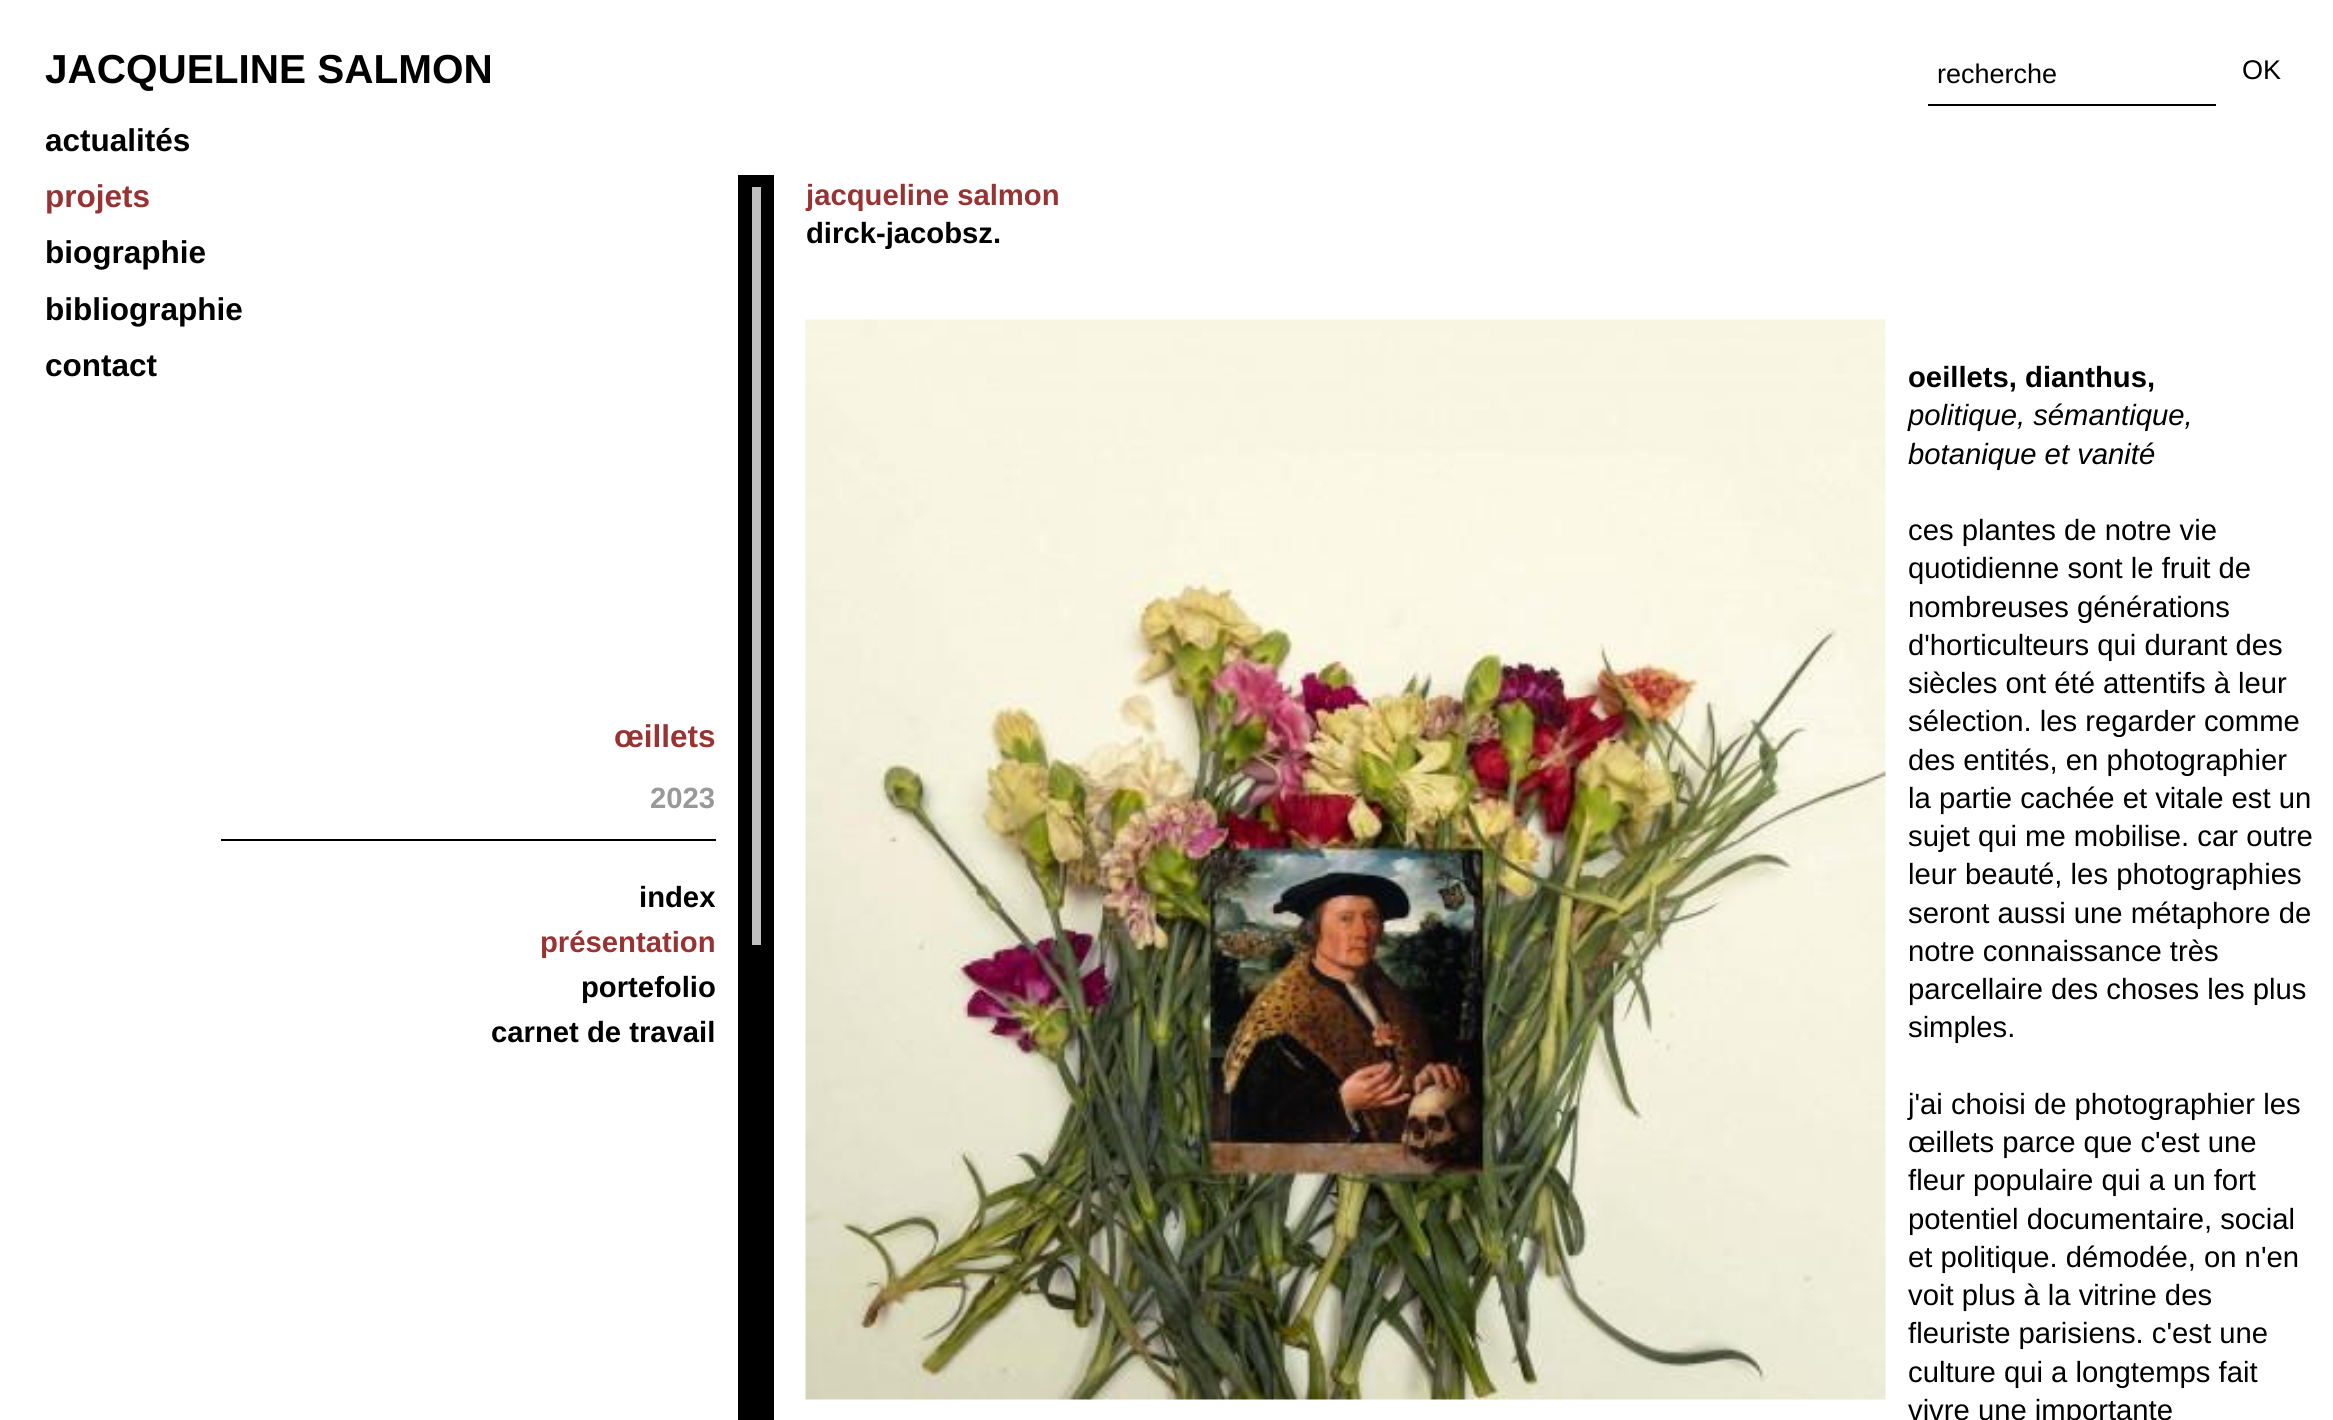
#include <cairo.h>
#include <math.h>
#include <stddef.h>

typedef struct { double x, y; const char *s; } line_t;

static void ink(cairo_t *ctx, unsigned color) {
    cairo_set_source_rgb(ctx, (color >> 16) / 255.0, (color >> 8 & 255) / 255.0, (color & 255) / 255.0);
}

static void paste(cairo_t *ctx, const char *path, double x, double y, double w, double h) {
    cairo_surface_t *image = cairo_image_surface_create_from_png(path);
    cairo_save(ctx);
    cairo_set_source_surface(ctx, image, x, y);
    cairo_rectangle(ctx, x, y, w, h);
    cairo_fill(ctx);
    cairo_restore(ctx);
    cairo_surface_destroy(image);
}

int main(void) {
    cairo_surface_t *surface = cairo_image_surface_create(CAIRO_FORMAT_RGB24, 2333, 1420);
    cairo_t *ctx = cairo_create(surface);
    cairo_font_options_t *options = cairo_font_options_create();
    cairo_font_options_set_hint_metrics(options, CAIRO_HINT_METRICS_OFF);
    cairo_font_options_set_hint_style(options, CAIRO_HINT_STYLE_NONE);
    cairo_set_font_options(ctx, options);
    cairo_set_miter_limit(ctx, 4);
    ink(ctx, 0xFFFFFF);
    cairo_paint(ctx);
    cairo_select_font_face(ctx, "Liberation Sans", CAIRO_FONT_SLANT_NORMAL, CAIRO_FONT_WEIGHT_BOLD);
    cairo_set_font_size(ctx, 40.5);
    ink(ctx, 0x000000);
    cairo_move_to(ctx, 45, 83);
    cairo_show_text(ctx, "JACQUELINE SALMON");
    cairo_rectangle(ctx, 1928, 104, 288, 2);
    cairo_fill(ctx);
    cairo_select_font_face(ctx, "Liberation Sans", CAIRO_FONT_SLANT_NORMAL, CAIRO_FONT_WEIGHT_NORMAL);
    cairo_set_font_size(ctx, 27);
    cairo_move_to(ctx, 1937, 83);
    cairo_show_text(ctx, "recherche");
    cairo_move_to(ctx, 2242, 79);
    cairo_show_text(ctx, "OK");
    cairo_select_font_face(ctx, "Liberation Sans", CAIRO_FONT_SLANT_NORMAL, CAIRO_FONT_WEIGHT_BOLD);
    cairo_set_font_size(ctx, 31.5);
    cairo_move_to(ctx, 45, 151);
    cairo_show_text(ctx, "actualités");
    ink(ctx, 0x993333);
    cairo_move_to(ctx, 45, 207);
    cairo_show_text(ctx, "projets");
    ink(ctx, 0x000000);
    {
        static const line_t items[] = {
            {45, 263, "biographie"},
            {45, 320, "bibliographie"},
            {45, 376, "contact"},
        };
        for (size_t i = 0; i < sizeof items / sizeof *items; i++) {
            cairo_move_to(ctx, items[i].x, items[i].y);
            cairo_show_text(ctx, items[i].s);
        }
    }
    cairo_rectangle(ctx, 221, 839, 495, 2);
    cairo_fill(ctx);
    ink(ctx, 0x993333);
    cairo_move_to(ctx, 614, 747);
    cairo_show_text(ctx, "œillets");
    cairo_set_font_size(ctx, 29.25);
    ink(ctx, 0x999999);
    cairo_move_to(ctx, 650, 808);
    cairo_show_text(ctx, "2023");
    ink(ctx, 0x000000);
    cairo_move_to(ctx, 639, 907);
    cairo_show_text(ctx, "index");
    ink(ctx, 0x993333);
    cairo_move_to(ctx, 540, 952);
    cairo_show_text(ctx, "présentation");
    ink(ctx, 0x000000);
    cairo_move_to(ctx, 581, 997);
    cairo_show_text(ctx, "portefolio");
    cairo_move_to(ctx, 491, 1042);
    cairo_show_text(ctx, "carnet de travail");
    cairo_rectangle(ctx, 738, 175, 36, 1245);
    cairo_fill(ctx);
    ink(ctx, 0xBFBFBF);
    cairo_rectangle(ctx, 752, 187, 9, 758);
    cairo_fill(ctx);
    ink(ctx, 0x993333);
    cairo_move_to(ctx, 806, 205);
    cairo_show_text(ctx, "jacqueline salmon");
    ink(ctx, 0x000000);
    cairo_move_to(ctx, 806, 243);
    cairo_show_text(ctx, "dirck-jacobsz.");
    paste(ctx, "media/1.png", 805, 319, 1081, 1081);
    cairo_move_to(ctx, 1908, 387);
    cairo_show_text(ctx, "oeillets, dianthus,");
    cairo_select_font_face(ctx, "Liberation Sans", CAIRO_FONT_SLANT_ITALIC, CAIRO_FONT_WEIGHT_NORMAL);
    cairo_move_to(ctx, 1908, 425);
    cairo_show_text(ctx, "politique, sémantique,");
    cairo_move_to(ctx, 1908, 464);
    cairo_show_text(ctx, "botanique et vanité");
    cairo_select_font_face(ctx, "Liberation Sans", CAIRO_FONT_SLANT_NORMAL, CAIRO_FONT_WEIGHT_NORMAL);
    {
        static const line_t items[] = {
            {1908, 540, "ces plantes de notre vie"},
            {1908, 578, "quotidienne sont le fruit de"},
            {1908, 617, "nombreuses générations"},
            {1908, 655, "d'horticulteurs qui durant des"},
            {1908, 693, "siècles ont été attentifs à leur"},
            {1908, 731, "sélection. les regarder comme"},
            {1908, 770, "des entités, en photographier"},
            {1908, 808, "la partie cachée et vitale est un"},
            {1908, 846, "sujet qui me mobilise. car outre"},
            {1908, 884, "leur beauté, les photographies"},
            {1908, 923, "seront aussi une métaphore de"},
            {1908, 961, "notre connaissance très"},
            {1908, 999, "parcellaire des choses les plus"},
            {1908, 1037, "simples."},
            {1908, 1114, "j'ai choisi de photographier les"},
            {1908, 1152, "œillets parce que c'est une"},
            {1908, 1190, "fleur populaire qui a un fort"},
            {1908, 1229, "potentiel documentaire, social"},
            {1908, 1267, "et politique. démodée, on n'en"},
            {1908, 1305, "voit plus à la vitrine des"},
            {1908, 1343, "fleuriste parisiens. c'est une"},
            {1908, 1382, "culture qui a longtemps fait"},
            {1908, 1420, "vivre une importante"},
        };
        for (size_t i = 0; i < sizeof items / sizeof *items; i++) {
            cairo_move_to(ctx, items[i].x, items[i].y);
            cairo_show_text(ctx, items[i].s);
        }
    }
    cairo_surface_write_to_png(surface, "image.png");
    cairo_font_options_destroy(options);
    cairo_destroy(ctx);
    cairo_surface_destroy(surface);
    return 0;
}
